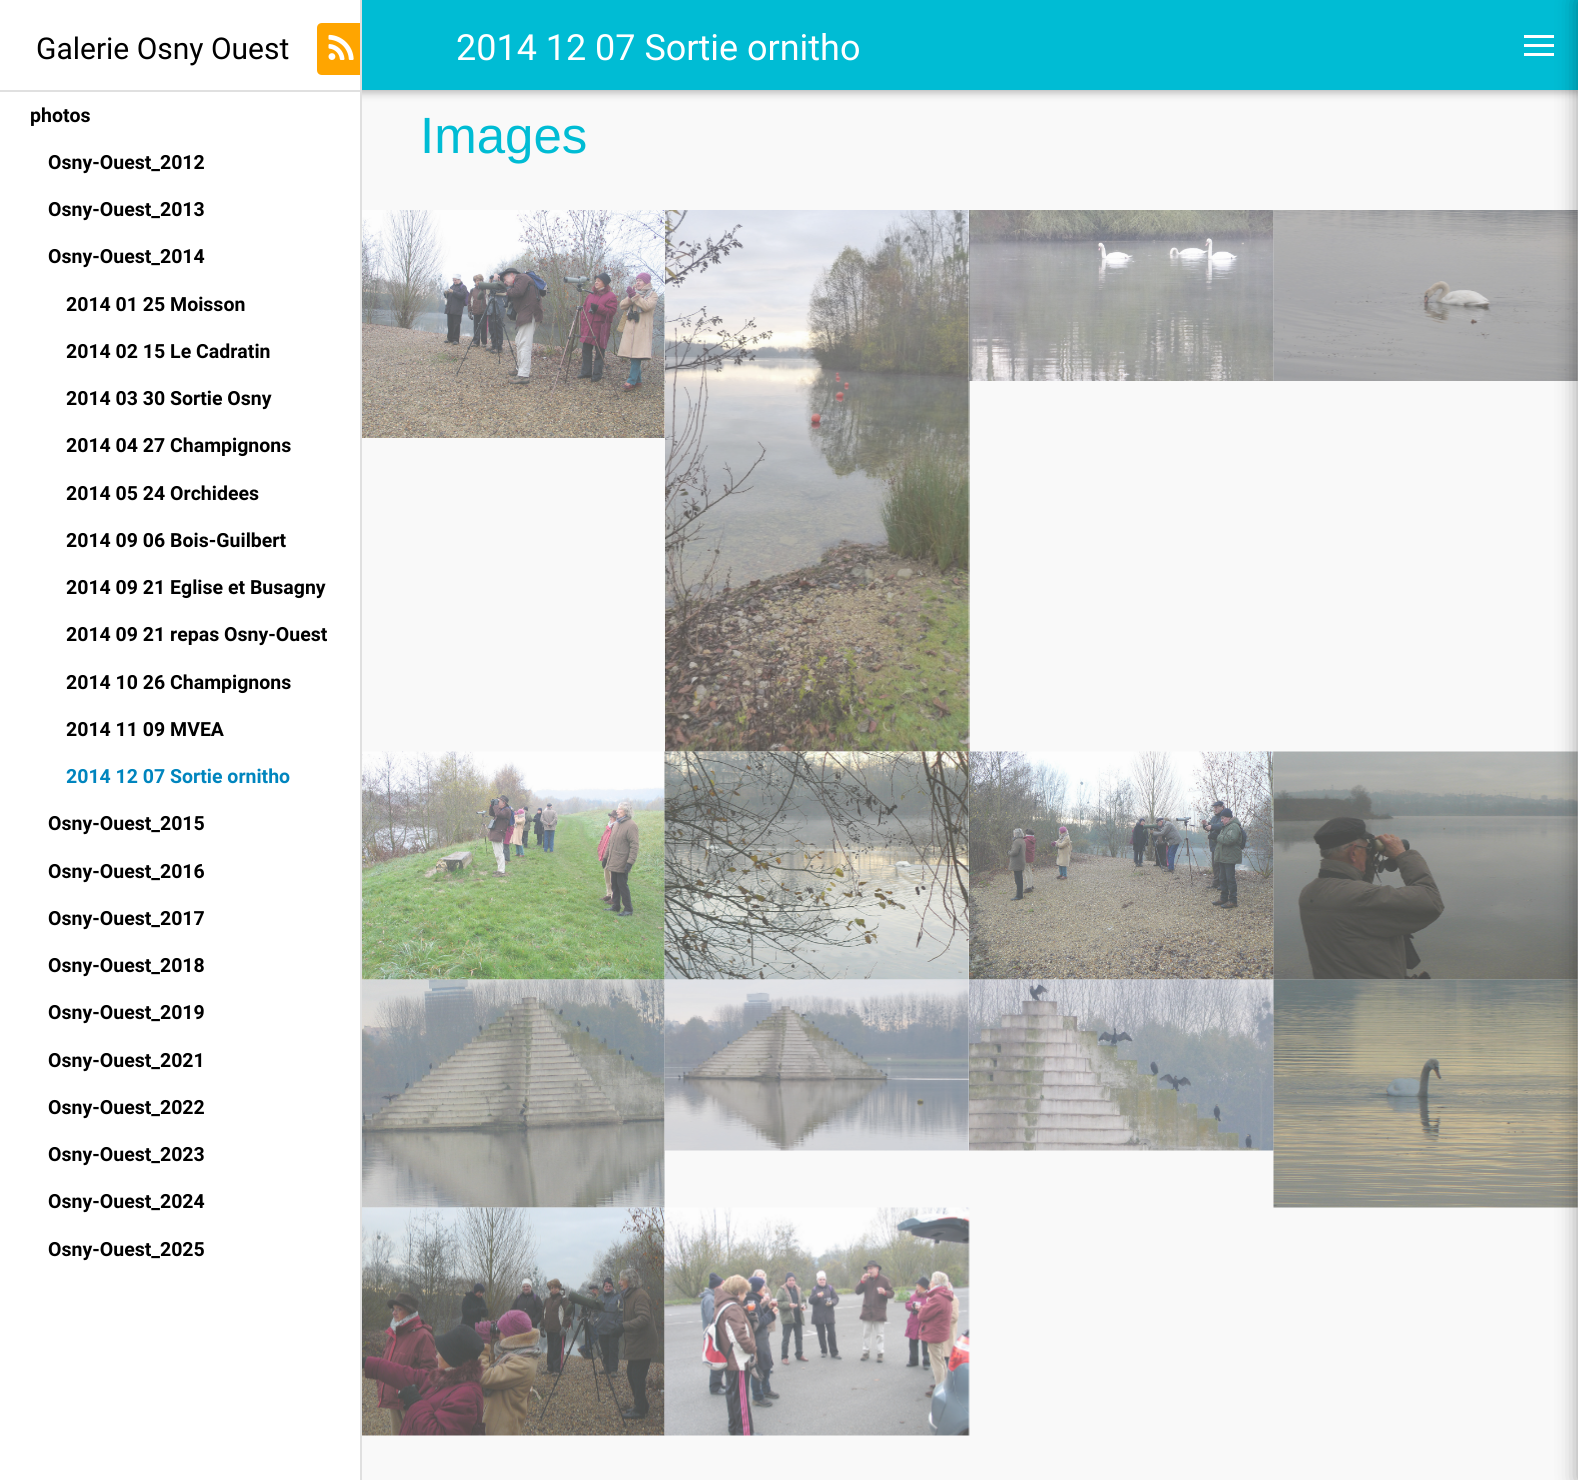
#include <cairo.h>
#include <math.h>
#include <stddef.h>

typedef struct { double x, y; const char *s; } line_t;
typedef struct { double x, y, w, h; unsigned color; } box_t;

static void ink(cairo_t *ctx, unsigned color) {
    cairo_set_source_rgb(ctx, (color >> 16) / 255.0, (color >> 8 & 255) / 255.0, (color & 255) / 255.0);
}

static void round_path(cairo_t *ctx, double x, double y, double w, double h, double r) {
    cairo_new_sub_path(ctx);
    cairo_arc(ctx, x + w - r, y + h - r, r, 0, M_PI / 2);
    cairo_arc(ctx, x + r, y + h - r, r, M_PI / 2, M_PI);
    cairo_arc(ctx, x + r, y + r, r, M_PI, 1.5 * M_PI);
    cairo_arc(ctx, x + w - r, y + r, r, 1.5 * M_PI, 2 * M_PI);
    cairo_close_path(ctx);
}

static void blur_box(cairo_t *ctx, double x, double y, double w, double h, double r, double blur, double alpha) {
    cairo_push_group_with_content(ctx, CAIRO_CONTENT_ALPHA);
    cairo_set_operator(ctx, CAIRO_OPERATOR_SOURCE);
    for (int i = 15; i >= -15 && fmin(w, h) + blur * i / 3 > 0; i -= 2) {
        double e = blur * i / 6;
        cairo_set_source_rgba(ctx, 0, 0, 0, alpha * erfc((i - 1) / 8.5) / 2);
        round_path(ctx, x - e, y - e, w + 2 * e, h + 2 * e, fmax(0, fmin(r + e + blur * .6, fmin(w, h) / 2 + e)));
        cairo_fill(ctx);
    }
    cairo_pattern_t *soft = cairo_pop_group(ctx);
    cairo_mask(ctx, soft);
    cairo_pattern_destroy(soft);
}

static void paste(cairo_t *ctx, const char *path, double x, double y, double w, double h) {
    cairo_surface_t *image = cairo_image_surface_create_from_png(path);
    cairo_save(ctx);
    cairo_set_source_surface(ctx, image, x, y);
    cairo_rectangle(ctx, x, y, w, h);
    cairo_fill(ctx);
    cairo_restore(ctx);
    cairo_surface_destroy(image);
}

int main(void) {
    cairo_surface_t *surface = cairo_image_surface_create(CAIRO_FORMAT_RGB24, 1578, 1480);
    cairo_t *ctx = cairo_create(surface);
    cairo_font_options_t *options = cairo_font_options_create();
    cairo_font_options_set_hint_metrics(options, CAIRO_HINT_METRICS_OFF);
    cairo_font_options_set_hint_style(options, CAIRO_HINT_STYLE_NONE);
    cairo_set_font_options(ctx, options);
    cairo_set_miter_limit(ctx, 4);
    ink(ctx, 0xF9F9F9);
    cairo_paint(ctx);
    ink(ctx, 0x000000);
    blur_box(ctx, 360, 3, 1218, 90, 0, 4, 0.26);
    {
        static const box_t items[] = {
            {0, 0, 360, 1480, 0xFFFFFF},
            {360, 0, 2, 1480, 0xE0E0E0},
            {0, 90, 360, 2, 0xE0E0E0},
        };
        for (size_t i = 0; i < sizeof items / sizeof *items; i++) {
            ink(ctx, items[i].color);
            cairo_rectangle(ctx, items[i].x, items[i].y, items[i].w, items[i].h);
            cairo_fill(ctx);
        }
    }
    cairo_select_font_face(ctx, "Roboto", CAIRO_FONT_SLANT_NORMAL, CAIRO_FONT_WEIGHT_NORMAL);
    cairo_set_font_size(ctx, 30);
    ink(ctx, 0x000000);
    cairo_move_to(ctx, 36, 59);
    cairo_show_text(ctx, "Galerie Osny Ouest");
    ink(ctx, 0xFFA500);
    cairo_new_path(ctx);
    cairo_move_to(ctx, 322, 23);
    cairo_line_to(ctx, 360, 23);
    cairo_line_to(ctx, 360, 75);
    cairo_line_to(ctx, 322, 75);
    cairo_curve_to(ctx, 319, 75, 317, 73, 317, 70);
    cairo_line_to(ctx, 317, 28);
    cairo_curve_to(ctx, 317, 25, 319, 23, 322, 23);
    cairo_close_path(ctx);
    cairo_fill(ctx);
    paste(ctx, "media/1.png", 328, 34, 26, 26);
    cairo_select_font_face(ctx, "Roboto", CAIRO_FONT_SLANT_NORMAL, CAIRO_FONT_WEIGHT_BOLD);
    cairo_set_font_size(ctx, 19.5);
    ink(ctx, 0x000000);
    {
        static const line_t items[] = {
            {30, 122, "photos"},
            {48, 169, "Osny-Ouest_2012"},
            {48, 216, "Osny-Ouest_2013"},
            {48, 263, "Osny-Ouest_2014"},
            {66, 311, "2014 01 25 Moisson"},
            {66, 358, "2014 02 15 Le Cadratin"},
            {66, 405, "2014 03 30 Sortie Osny"},
            {66, 452, "2014 04 27 Champignons"},
            {66, 500, "2014 05 24 Orchidees"},
            {66, 547, "2014 09 06 Bois-Guilbert"},
            {66, 594, "2014 09 21 Eglise et Busagny"},
            {66, 641, "2014 09 21 repas Osny-Ouest"},
            {66, 689, "2014 10 26 Champignons"},
            {66, 736, "2014 11 09 MVEA"},
        };
        for (size_t i = 0; i < sizeof items / sizeof *items; i++) {
            cairo_move_to(ctx, items[i].x, items[i].y);
            cairo_show_text(ctx, items[i].s);
        }
    }
    ink(ctx, 0x0085BE);
    cairo_move_to(ctx, 66, 783);
    cairo_show_text(ctx, "2014 12 07 Sortie ornitho");
    ink(ctx, 0x000000);
    {
        static const line_t items[] = {
            {48, 830, "Osny-Ouest_2015"},
            {48, 878, "Osny-Ouest_2016"},
            {48, 925, "Osny-Ouest_2017"},
            {48, 972, "Osny-Ouest_2018"},
            {48, 1019, "Osny-Ouest_2019"},
            {48, 1067, "Osny-Ouest_2021"},
            {48, 1114, "Osny-Ouest_2022"},
            {48, 1161, "Osny-Ouest_2023"},
            {48, 1208, "Osny-Ouest_2024"},
            {48, 1256, "Osny-Ouest_2025"},
        };
        for (size_t i = 0; i < sizeof items / sizeof *items; i++) {
            cairo_move_to(ctx, items[i].x, items[i].y);
            cairo_show_text(ctx, items[i].s);
        }
    }
    ink(ctx, 0x00BCD4);
    cairo_rectangle(ctx, 362, 0, 1216, 90);
    cairo_fill(ctx);
    cairo_select_font_face(ctx, "Roboto", CAIRO_FONT_SLANT_NORMAL, CAIRO_FONT_WEIGHT_NORMAL);
    cairo_set_font_size(ctx, 36);
    ink(ctx, 0xFFFFFF);
    cairo_move_to(ctx, 456, 60);
    cairo_show_text(ctx, "2014 12 07 Sortie ornitho");
    cairo_select_font_face(ctx, "Liberation Sans", CAIRO_FONT_SLANT_NORMAL, CAIRO_FONT_WEIGHT_NORMAL);
    cairo_set_font_size(ctx, 51);
    ink(ctx, 0x00BCD4);
    cairo_move_to(ctx, 420, 153);
    cairo_show_text(ctx, "Images");
    paste(ctx, "media/2.png", 362, 210, 303, 228);
    paste(ctx, "media/3.png", 665, 210, 305, 542);
    paste(ctx, "media/4.png", 969, 210, 305, 171);
    paste(ctx, "media/5.png", 1273, 210, 305, 171);
    paste(ctx, "media/6.png", 362, 751, 303, 229);
    paste(ctx, "media/7.png", 664, 751, 306, 229);
    paste(ctx, "media/8.png", 969, 751, 305, 229);
    paste(ctx, "media/9.png", 1273, 751, 305, 229);
    paste(ctx, "media/10.png", 362, 979, 303, 229);
    paste(ctx, "media/11.png", 664, 979, 306, 172);
    paste(ctx, "media/12.png", 969, 979, 305, 172);
    paste(ctx, "media/13.png", 1273, 979, 305, 229);
    paste(ctx, "media/14.png", 362, 1207, 303, 229);
    paste(ctx, "media/15.png", 664, 1207, 306, 229);
    {
        static const box_t items[] = {
            {1524, 44, 30, 3, 0xFFFFFF},
            {1524, 35, 30, 3, 0xFFFFFF},
            {1524, 53, 30, 3, 0xFFFFFF},
        };
        for (size_t i = 0; i < sizeof items / sizeof *items; i++) {
            ink(ctx, items[i].color);
            cairo_rectangle(ctx, items[i].x, items[i].y, items[i].w, items[i].h);
            cairo_fill(ctx);
        }
    }
    ink(ctx, 0x000000);
    blur_box(ctx, 1578, 0, 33, 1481, 0, 11, 0.36);
    cairo_surface_write_to_png(surface, "image.png");
    cairo_font_options_destroy(options);
    cairo_destroy(ctx);
    cairo_surface_destroy(surface);
    return 0;
}
